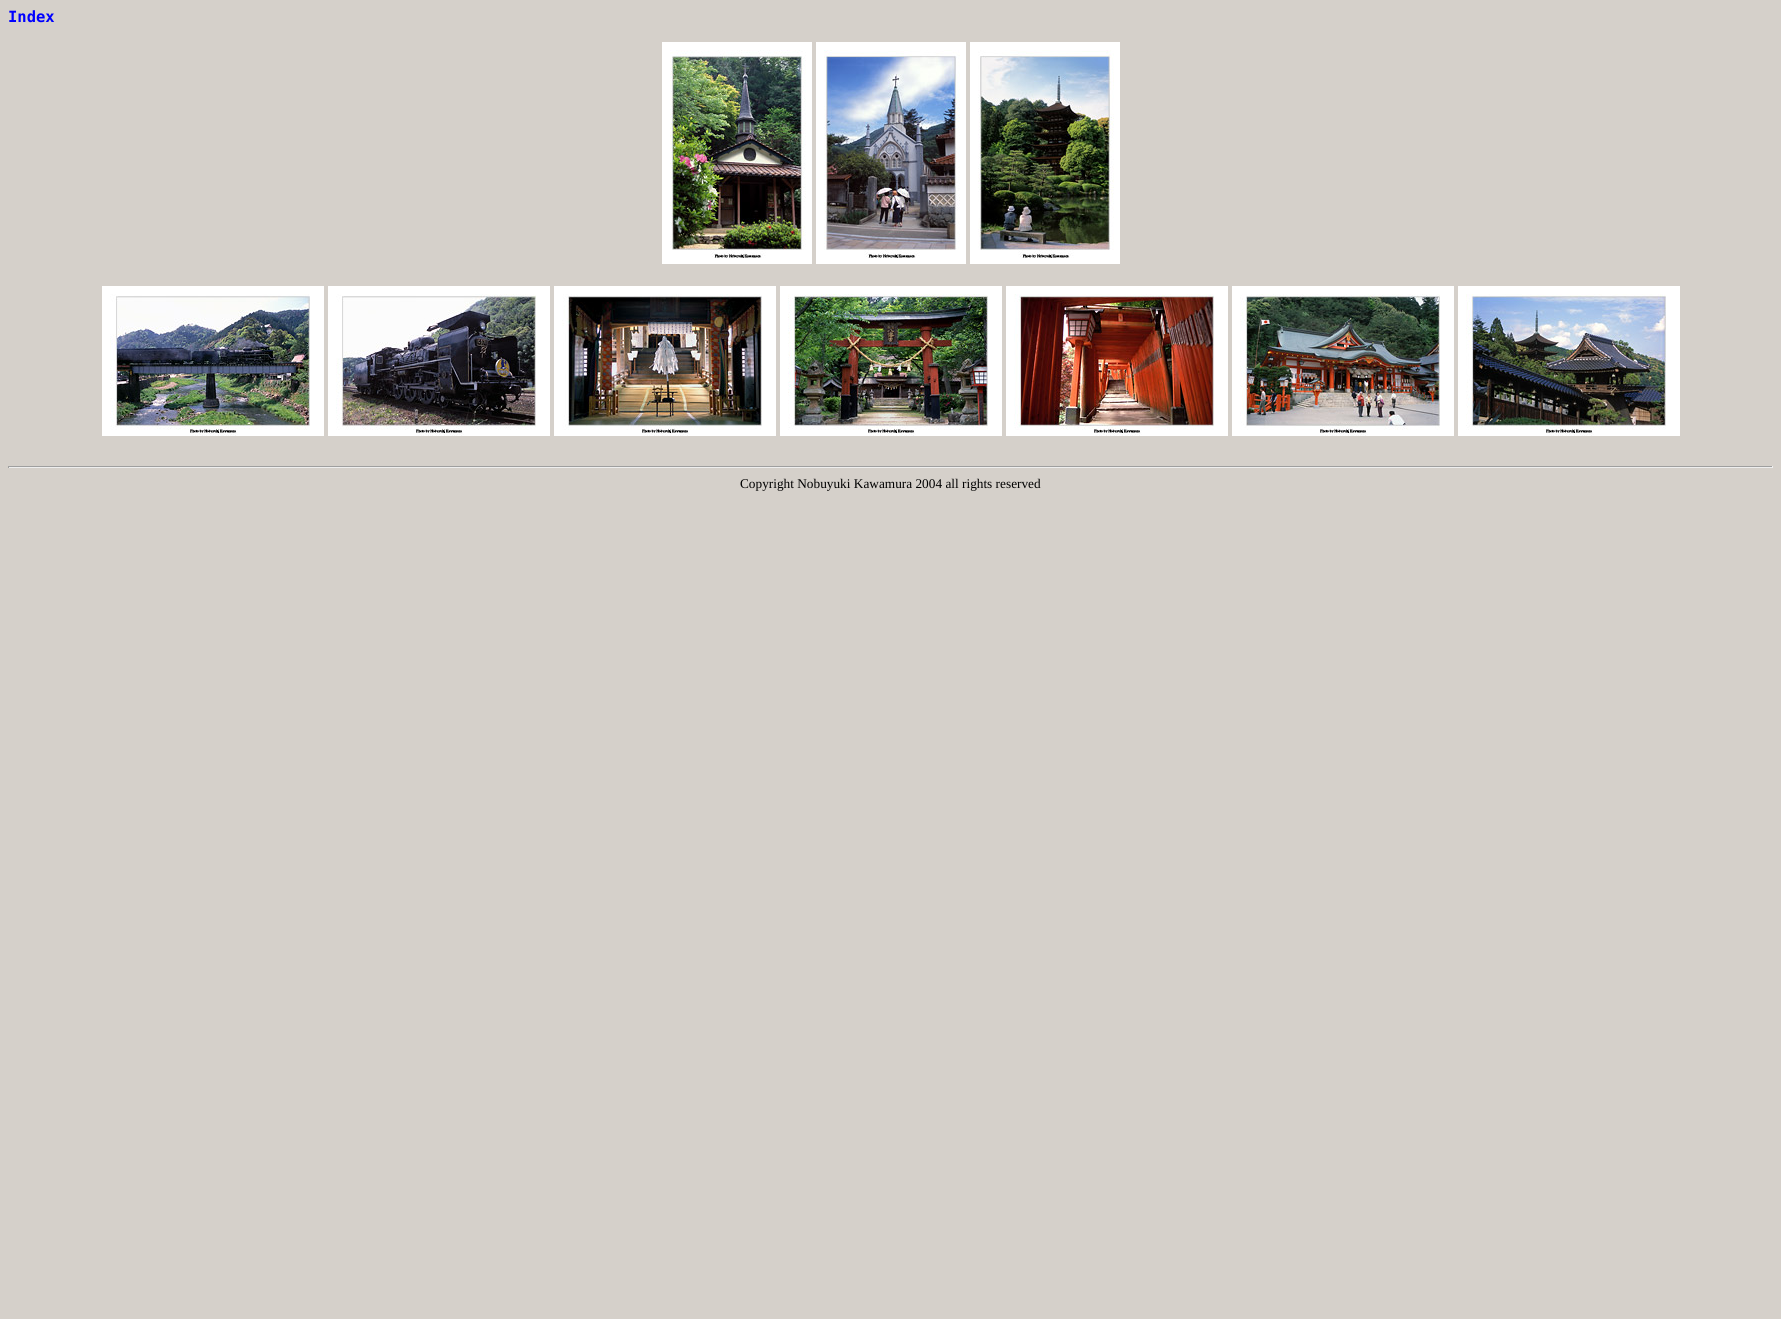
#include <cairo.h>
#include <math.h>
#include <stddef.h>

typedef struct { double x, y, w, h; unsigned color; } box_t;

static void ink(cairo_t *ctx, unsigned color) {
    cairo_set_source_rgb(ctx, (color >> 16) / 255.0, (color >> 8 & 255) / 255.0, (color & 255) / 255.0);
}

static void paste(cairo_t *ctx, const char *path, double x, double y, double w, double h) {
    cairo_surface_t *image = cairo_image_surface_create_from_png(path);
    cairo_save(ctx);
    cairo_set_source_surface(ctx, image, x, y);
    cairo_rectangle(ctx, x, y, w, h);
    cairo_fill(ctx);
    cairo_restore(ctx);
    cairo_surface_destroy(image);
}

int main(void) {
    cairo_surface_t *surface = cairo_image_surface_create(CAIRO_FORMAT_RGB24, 1781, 1319);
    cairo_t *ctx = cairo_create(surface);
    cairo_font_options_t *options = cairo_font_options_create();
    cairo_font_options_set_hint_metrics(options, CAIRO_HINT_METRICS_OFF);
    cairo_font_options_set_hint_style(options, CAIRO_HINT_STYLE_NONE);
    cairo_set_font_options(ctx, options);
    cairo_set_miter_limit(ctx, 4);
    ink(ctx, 0xD5D0CA);
    cairo_paint(ctx);
    cairo_select_font_face(ctx, "DejaVu Sans Mono", CAIRO_FONT_SLANT_NORMAL, CAIRO_FONT_WEIGHT_BOLD);
    cairo_set_font_size(ctx, 15.5);
    ink(ctx, 0x0000FF);
    cairo_move_to(ctx, 8, 22);
    cairo_show_text(ctx, "Index");
    paste(ctx, "media/1.png", 662, 42, 150, 222);
    paste(ctx, "media/2.png", 816, 42, 150, 222);
    paste(ctx, "media/3.png", 970, 42, 150, 222);
    paste(ctx, "media/4.png", 102, 286, 222, 150);
    paste(ctx, "media/5.png", 328, 286, 222, 150);
    paste(ctx, "media/6.png", 554, 286, 222, 150);
    paste(ctx, "media/7.png", 780, 286, 222, 150);
    paste(ctx, "media/8.png", 1006, 286, 222, 150);
    paste(ctx, "media/9.png", 1232, 286, 222, 150);
    paste(ctx, "media/10.png", 1458, 286, 222, 150);
    {
        static const box_t items[] = {
            {8, 466, 1765, 1, 0x9F9F9F},
            {1772, 466, 1, 2, 0xEEEEEE},
            {8, 467, 1765, 1, 0xEEEEEE},
            {8, 466, 1, 2, 0x9F9F9F},
        };
        for (size_t i = 0; i < sizeof items / sizeof *items; i++) {
            ink(ctx, items[i].color);
            cairo_rectangle(ctx, items[i].x, items[i].y, items[i].w, items[i].h);
            cairo_fill(ctx);
        }
    }
    cairo_select_font_face(ctx, "Liberation Serif", CAIRO_FONT_SLANT_NORMAL, CAIRO_FONT_WEIGHT_NORMAL);
    cairo_set_font_size(ctx, 13.3);
    ink(ctx, 0x000000);
    cairo_move_to(ctx, 740, 488);
    cairo_show_text(ctx, "Copyright Nobuyuki Kawamura 2004 all rights reserved");
    cairo_surface_write_to_png(surface, "image.png");
    cairo_font_options_destroy(options);
    cairo_destroy(ctx);
    cairo_surface_destroy(surface);
    return 0;
}
